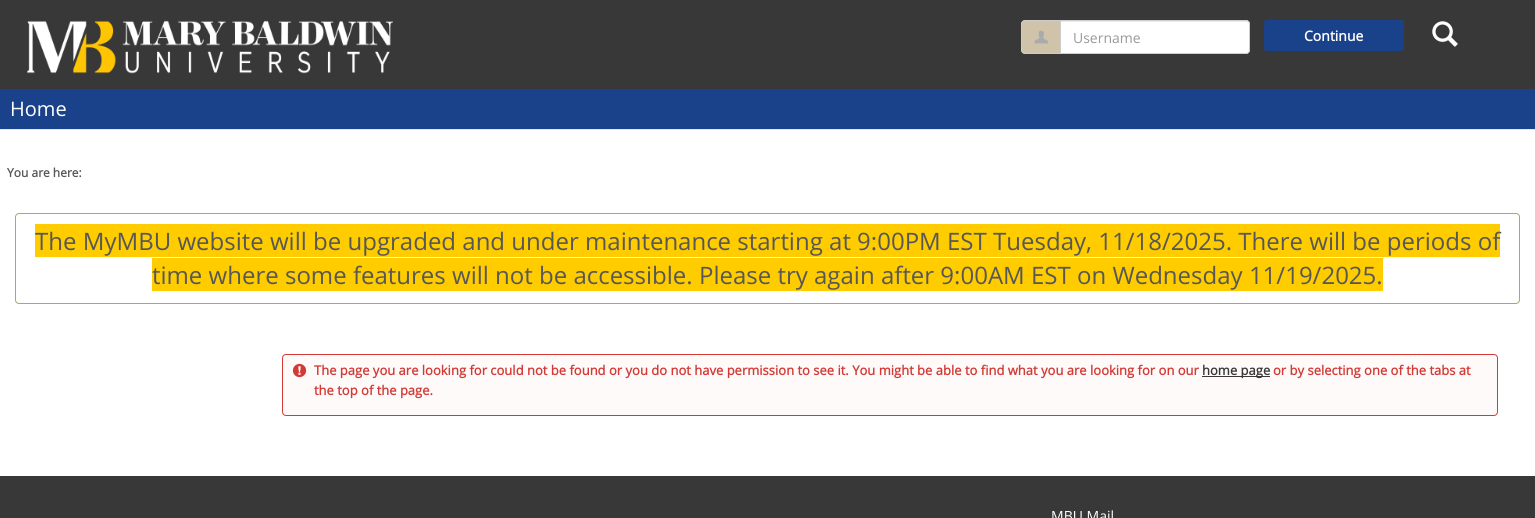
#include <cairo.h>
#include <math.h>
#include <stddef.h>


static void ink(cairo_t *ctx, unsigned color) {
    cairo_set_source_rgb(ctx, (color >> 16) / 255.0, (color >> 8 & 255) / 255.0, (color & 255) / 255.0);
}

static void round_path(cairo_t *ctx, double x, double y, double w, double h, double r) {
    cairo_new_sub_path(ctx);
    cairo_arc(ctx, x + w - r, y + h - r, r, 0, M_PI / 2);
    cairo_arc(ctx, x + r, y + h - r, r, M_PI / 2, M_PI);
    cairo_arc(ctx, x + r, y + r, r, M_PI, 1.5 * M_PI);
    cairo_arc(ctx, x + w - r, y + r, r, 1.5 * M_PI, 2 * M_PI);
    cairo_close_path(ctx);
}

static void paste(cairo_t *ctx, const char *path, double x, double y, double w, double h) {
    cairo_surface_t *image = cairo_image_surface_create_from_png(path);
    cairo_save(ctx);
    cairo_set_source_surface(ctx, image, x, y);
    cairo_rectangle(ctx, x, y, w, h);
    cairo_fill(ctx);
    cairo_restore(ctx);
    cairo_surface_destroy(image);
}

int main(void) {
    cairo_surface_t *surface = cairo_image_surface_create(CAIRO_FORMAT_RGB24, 1535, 518);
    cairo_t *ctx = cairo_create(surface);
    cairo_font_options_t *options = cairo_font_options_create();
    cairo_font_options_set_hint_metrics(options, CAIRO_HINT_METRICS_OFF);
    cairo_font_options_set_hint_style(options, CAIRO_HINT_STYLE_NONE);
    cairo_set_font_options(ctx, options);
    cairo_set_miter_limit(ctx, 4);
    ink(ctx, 0xFFFFFF);
    cairo_paint(ctx);
    ink(ctx, 0x383839);
    cairo_rectangle(ctx, 0, 0, 1535, 89);
    cairo_fill(ctx);
    paste(ctx, "media/1.png", 27, 20, 366, 54);
    ink(ctx, 0xCFC3A9);
    cairo_new_path(ctx);
    cairo_move_to(ctx, 1025, 20);
    cairo_line_to(ctx, 1060, 20);
    cairo_line_to(ctx, 1060, 54);
    cairo_line_to(ctx, 1025, 54);
    cairo_curve_to(ctx, 1023, 54, 1021, 52, 1021, 50);
    cairo_line_to(ctx, 1021, 24);
    cairo_curve_to(ctx, 1021, 22, 1023, 20, 1025, 20);
    cairo_close_path(ctx);
    cairo_fill(ctx);
    ink(ctx, 0xCCCCCC);
    cairo_set_fill_rule(ctx, CAIRO_FILL_RULE_EVEN_ODD);
    cairo_new_path(ctx);
    cairo_move_to(ctx, 1025, 20);
    cairo_line_to(ctx, 1060, 20);
    cairo_line_to(ctx, 1060, 54);
    cairo_line_to(ctx, 1025, 54);
    cairo_curve_to(ctx, 1023, 54, 1021, 52, 1021, 50);
    cairo_line_to(ctx, 1021, 24);
    cairo_curve_to(ctx, 1021, 22, 1023, 20, 1025, 20);
    cairo_close_path(ctx);
    cairo_move_to(ctx, 1025, 21);
    cairo_line_to(ctx, 1060, 21);
    cairo_line_to(ctx, 1060, 53);
    cairo_line_to(ctx, 1025, 53);
    cairo_curve_to(ctx, 1023.5, 53, 1022, 51.5, 1022, 50);
    cairo_line_to(ctx, 1022, 24);
    cairo_curve_to(ctx, 1022, 22.5, 1023.5, 21, 1025, 21);
    cairo_close_path(ctx);
    cairo_fill(ctx);
    paste(ctx, "media/2.png", 1034, 30, 14, 14);
    ink(ctx, 0xFFFFFF);
    cairo_new_path(ctx);
    cairo_move_to(ctx, 1060, 20);
    cairo_line_to(ctx, 1246, 20);
    cairo_curve_to(ctx, 1248, 20, 1250, 22, 1250, 24);
    cairo_line_to(ctx, 1250, 50);
    cairo_curve_to(ctx, 1250, 52, 1248, 54, 1246, 54);
    cairo_line_to(ctx, 1060, 54);
    cairo_close_path(ctx);
    cairo_fill(ctx);
    ink(ctx, 0xECECEC);
    cairo_set_fill_rule(ctx, CAIRO_FILL_RULE_WINDING);
    cairo_new_path(ctx);
    cairo_move_to(ctx, 1061, 22);
    cairo_line_to(ctx, 1246, 22);
    cairo_curve_to(ctx, 1248, 22, 1249, 23, 1249, 25);
    cairo_curve_to(ctx, 1249, 23, 1248, 21, 1246, 21);
    cairo_line_to(ctx, 1061, 21);
    cairo_close_path(ctx);
    cairo_fill(ctx);
    cairo_new_path(ctx);
    cairo_move_to(ctx, 1060.5, 20.5);
    cairo_line_to(ctx, 1246, 20.5);
    cairo_curve_to(ctx, 1248, 20.5, 1249.5, 22, 1249.5, 24);
    cairo_line_to(ctx, 1249.5, 50);
    cairo_curve_to(ctx, 1249.5, 52, 1248, 53.5, 1246, 53.5);
    cairo_line_to(ctx, 1060.5, 53.5);
    cairo_close_path(ctx);
    ink(ctx, 0xCCCCCC);
    cairo_set_line_width(ctx, 1);
    cairo_stroke(ctx);
    cairo_select_font_face(ctx, "Open Sans", CAIRO_FONT_SLANT_NORMAL, CAIRO_FONT_WEIGHT_NORMAL);
    cairo_set_font_size(ctx, 14);
    ink(ctx, 0x999999);
    cairo_move_to(ctx, 1073, 43);
    cairo_show_text(ctx, "Username");
    ink(ctx, 0x1A428A);
    round_path(ctx, 1264, 20, 140, 31, 3);
    cairo_fill(ctx);
    cairo_select_font_face(ctx, "Open Sans", CAIRO_FONT_SLANT_NORMAL, CAIRO_FONT_WEIGHT_BOLD);
    ink(ctx, 0xFFFFFF);
    cairo_move_to(ctx, 1304, 41);
    cairo_show_text(ctx, "Continue");
    paste(ctx, "media/3.png", 1432, 21, 26, 26);
    ink(ctx, 0x1A428A);
    cairo_rectangle(ctx, 0, 89, 1535, 40);
    cairo_fill(ctx);
    ink(ctx, 0xE7E7E7);
    cairo_rectangle(ctx, 0, 129, 1535, 1);
    cairo_fill(ctx);
    cairo_select_font_face(ctx, "Open Sans", CAIRO_FONT_SLANT_NORMAL, CAIRO_FONT_WEIGHT_NORMAL);
    cairo_set_font_size(ctx, 20);
    ink(ctx, 0xFFFFFF);
    cairo_move_to(ctx, 10, 116);
    cairo_show_text(ctx, "Home");
    cairo_select_font_face(ctx, "Open Sans", CAIRO_FONT_SLANT_NORMAL, CAIRO_FONT_WEIGHT_BOLD);
    cairo_set_font_size(ctx, 12);
    ink(ctx, 0x575757);
    cairo_move_to(ctx, 7, 177);
    cairo_show_text(ctx, "You are here:");
    round_path(ctx, 15.5, 213.5, 1504, 90, 3.5);
    ink(ctx, 0xB4A077);
    cairo_stroke(ctx);
    ink(ctx, 0xFFCC00);
    cairo_rectangle(ctx, 35, 224, 1465, 33);
    cairo_fill(ctx);
    cairo_select_font_face(ctx, "Open Sans", CAIRO_FONT_SLANT_NORMAL, CAIRO_FONT_WEIGHT_NORMAL);
    cairo_set_font_size(ctx, 24);
    ink(ctx, 0x575757);
    cairo_move_to(ctx, 35, 250);
    cairo_show_text(ctx, "The MyMBU website will be upgraded and under maintenance starting at 9:00PM EST Tuesday, 11/18/2025. There will be periods of");
    ink(ctx, 0xFFCC00);
    cairo_rectangle(ctx, 152, 258, 1231, 33);
    cairo_fill(ctx);
    ink(ctx, 0x575757);
    cairo_move_to(ctx, 152, 284);
    cairo_show_text(ctx, "time where some features will not be accessible. Please try again after 9:00AM EST on Wednesday 11/19/2025.");
    ink(ctx, 0xFEFAFA);
    round_path(ctx, 282.5, 354.5, 1215, 61, 3.5);
    cairo_fill_preserve(ctx);
    ink(ctx, 0xD33A35);
    cairo_stroke(ctx);
    paste(ctx, "media/4.png", 292, 363, 15, 15);
    cairo_select_font_face(ctx, "Open Sans", CAIRO_FONT_SLANT_NORMAL, CAIRO_FONT_WEIGHT_BOLD);
    cairo_set_font_size(ctx, 13);
    cairo_move_to(ctx, 314, 375);
    cairo_show_text(ctx, "The page you are looking for could not be found or you do not have permission to see it. You might be able to find what you are looking for on our");
    ink(ctx, 0x383839);
    cairo_rectangle(ctx, 1202, 376, 68, 1);
    cairo_fill(ctx);
    cairo_move_to(ctx, 1202, 375);
    cairo_show_text(ctx, "home page");
    ink(ctx, 0xD33A35);
    cairo_move_to(ctx, 1273, 375);
    cairo_show_text(ctx, "or by selecting one of the tabs at");
    cairo_move_to(ctx, 314, 395);
    cairo_show_text(ctx, "the top of the page.");
    ink(ctx, 0x383839);
    cairo_rectangle(ctx, 0, 476, 1535, 42);
    cairo_fill(ctx);
    cairo_select_font_face(ctx, "Open Sans", CAIRO_FONT_SLANT_NORMAL, CAIRO_FONT_WEIGHT_NORMAL);
    cairo_set_font_size(ctx, 14);
    ink(ctx, 0xFFFFFF);
    cairo_move_to(ctx, 1051, 521);
    cairo_show_text(ctx, "MBU Mail");
    cairo_surface_write_to_png(surface, "image.png");
    cairo_font_options_destroy(options);
    cairo_destroy(ctx);
    cairo_surface_destroy(surface);
    return 0;
}
